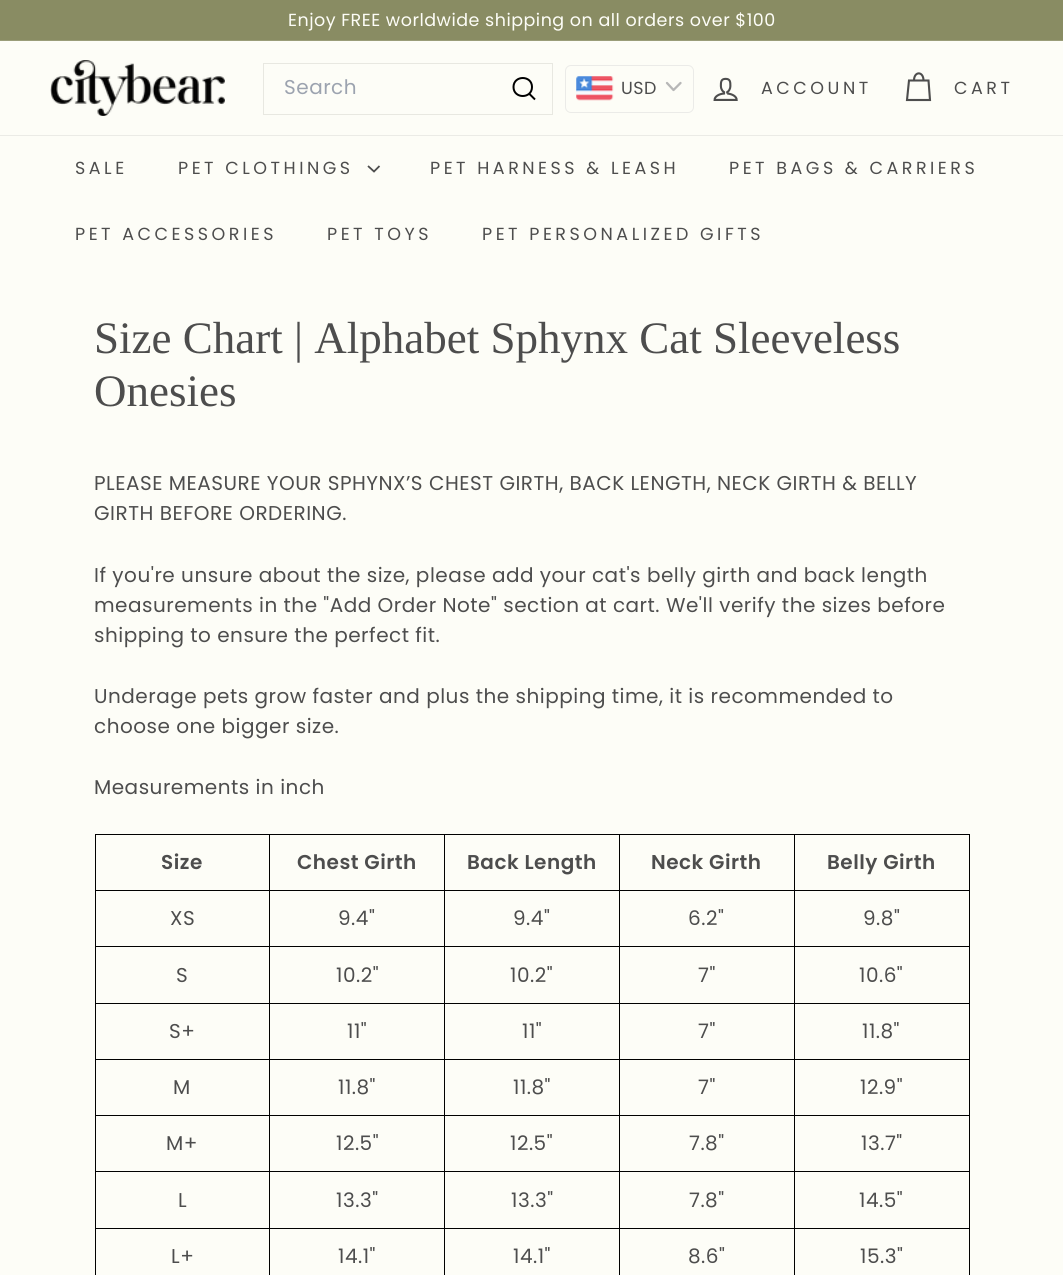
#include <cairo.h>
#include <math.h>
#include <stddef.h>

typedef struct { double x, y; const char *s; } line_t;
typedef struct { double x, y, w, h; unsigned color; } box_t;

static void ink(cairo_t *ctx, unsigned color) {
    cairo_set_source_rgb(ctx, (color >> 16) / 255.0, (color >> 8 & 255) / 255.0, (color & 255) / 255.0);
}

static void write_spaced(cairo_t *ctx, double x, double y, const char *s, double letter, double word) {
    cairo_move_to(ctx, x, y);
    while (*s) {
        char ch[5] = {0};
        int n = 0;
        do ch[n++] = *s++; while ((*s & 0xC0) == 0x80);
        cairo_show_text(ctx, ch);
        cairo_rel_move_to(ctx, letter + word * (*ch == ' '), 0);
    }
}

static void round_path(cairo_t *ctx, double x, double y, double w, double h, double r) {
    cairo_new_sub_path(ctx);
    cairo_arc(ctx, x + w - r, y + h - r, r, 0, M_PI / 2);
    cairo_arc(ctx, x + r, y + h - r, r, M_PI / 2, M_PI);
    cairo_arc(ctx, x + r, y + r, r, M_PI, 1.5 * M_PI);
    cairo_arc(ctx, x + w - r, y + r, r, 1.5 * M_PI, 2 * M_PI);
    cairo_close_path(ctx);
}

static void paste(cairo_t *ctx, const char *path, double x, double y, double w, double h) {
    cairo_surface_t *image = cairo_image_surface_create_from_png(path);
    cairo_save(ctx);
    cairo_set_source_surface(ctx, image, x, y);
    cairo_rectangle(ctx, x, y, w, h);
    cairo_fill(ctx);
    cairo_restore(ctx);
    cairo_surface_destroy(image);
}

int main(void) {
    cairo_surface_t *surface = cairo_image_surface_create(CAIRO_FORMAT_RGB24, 1063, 1275);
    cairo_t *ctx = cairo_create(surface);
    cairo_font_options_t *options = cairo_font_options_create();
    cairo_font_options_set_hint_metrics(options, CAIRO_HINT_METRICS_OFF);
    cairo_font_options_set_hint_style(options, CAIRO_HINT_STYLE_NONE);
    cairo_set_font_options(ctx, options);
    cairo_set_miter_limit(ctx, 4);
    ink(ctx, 0xFDFDF7);
    cairo_paint(ctx);
    ink(ctx, 0x898C63);
    cairo_rectangle(ctx, 0, 0, 1063, 40);
    cairo_fill(ctx);
    cairo_select_font_face(ctx, "Poppins", CAIRO_FONT_SLANT_NORMAL, CAIRO_FONT_WEIGHT_NORMAL);
    cairo_set_font_size(ctx, 17.5);
    ink(ctx, 0xFDFDF7);
    write_spaced(ctx, 288, 26, "Enjoy FREE worldwide shipping on all orders over $100", 0.5, 0);
    ink(ctx, 0x9A9D79);
    cairo_rectangle(ctx, 0, 40, 1063, 1);
    cairo_fill(ctx);
    paste(ctx, "media/1.png", 50, 60, 175, 56);
    cairo_rectangle(ctx, 263.5, 63.5, 289, 51);
    ink(ctx, 0xE8E8E1);
    cairo_set_line_width(ctx, 1);
    cairo_stroke(ctx);
    cairo_set_font_size(ctx, 20);
    ink(ctx, 0x9CA3AF);
    write_spaced(ctx, 284, 94, "Search", 0.5, 0);
    cairo_new_path(ctx);
    cairo_move_to(ctx, 532, 87);
    cairo_curve_to(ctx, 532, 99, 513.5, 99, 513.5, 87);
    cairo_curve_to(ctx, 513.5, 75, 532, 75, 532, 87);
    cairo_move_to(ctx, 535, 99.5);
    cairo_line_to(ctx, 529, 93.5);
    ink(ctx, 0x000000);
    cairo_set_line_width(ctx, 2);
    cairo_stroke(ctx);
    round_path(ctx, 565.5, 65.5, 128, 47, 5.5);
    ink(ctx, 0xEBEBE8);
    cairo_set_line_width(ctx, 1);
    cairo_stroke(ctx);
    paste(ctx, "media/2.png", 576, 76, 38, 25);
    cairo_set_font_size(ctx, 17.5);
    ink(ctx, 0x4D4D4D);
    write_spaced(ctx, 621, 94, "USD", 0.5, 0);
    cairo_new_path(ctx);
    cairo_move_to(ctx, 667, 83);
    cairo_line_to(ctx, 673.5, 90);
    cairo_line_to(ctx, 680.5, 83);
    ink(ctx, 0xB7B7B7);
    cairo_set_line_width(ctx, 2.3);
    cairo_set_line_cap(ctx, CAIRO_LINE_CAP_ROUND);
    cairo_set_line_join(ctx, CAIRO_LINE_JOIN_ROUND);
    cairo_stroke(ctx);
    paste(ctx, "media/3.png", 713, 77, 25, 24);
    ink(ctx, 0x4D4D4D);
    write_spaced(ctx, 761, 94, "ACCOUNT", 3.5, 0);
    cairo_new_path(ctx);
    cairo_move_to(ctx, 914, 80.5);
    cairo_curve_to(ctx, 914, 71, 923.5, 71, 923.5, 80.5);
    cairo_move_to(ctx, 909, 80.5);
    cairo_line_to(ctx, 928.5, 80.5);
    cairo_line_to(ctx, 930, 100);
    cairo_line_to(ctx, 907, 100);
    cairo_close_path(ctx);
    cairo_set_line_width(ctx, 2.1);
    cairo_set_line_cap(ctx, CAIRO_LINE_CAP_BUTT);
    cairo_set_line_join(ctx, CAIRO_LINE_JOIN_MITER);
    cairo_stroke(ctx);
    write_spaced(ctx, 954, 94, "CART", 3.5, 0);
    ink(ctx, 0xEBEBE6);
    cairo_rectangle(ctx, 0, 135, 1063, 1);
    cairo_fill(ctx);
    ink(ctx, 0x4D4D4D);
    write_spaced(ctx, 75, 174, "SALE", 3.5, 0);
    write_spaced(ctx, 178, 174, "PET CLOTHINGS", 3.5, 0);
    cairo_new_path(ctx);
    cairo_move_to(ctx, 368, 166);
    cairo_line_to(ctx, 374, 171.5);
    cairo_line_to(ctx, 379.5, 166);
    cairo_set_line_width(ctx, 1.8);
    cairo_stroke(ctx);
    {
        static const line_t items[] = {
            {430, 174, "PET HARNESS & LEASH"},
            {729, 174, "PET BAGS & CARRIERS"},
            {75, 240, "PET ACCESSORIES"},
            {327, 240, "PET TOYS"},
            {482, 240, "PET PERSONALIZED GIFTS"},
        };
        for (size_t i = 0; i < sizeof items / sizeof *items; i++) {
            write_spaced(ctx, items[i].x, items[i].y, items[i].s, 3.5, 0);
        }
    }
    cairo_select_font_face(ctx, "Liberation Serif", CAIRO_FONT_SLANT_NORMAL, CAIRO_FONT_WEIGHT_NORMAL);
    cairo_set_font_size(ctx, 45);
    cairo_move_to(ctx, 94, 353);
    cairo_show_text(ctx, "Size Chart | Alphabet Sphynx Cat Sleeveless");
    cairo_move_to(ctx, 94, 406);
    cairo_show_text(ctx, "Onesies");
    cairo_select_font_face(ctx, "Poppins", CAIRO_FONT_SLANT_NORMAL, CAIRO_FONT_WEIGHT_NORMAL);
    cairo_set_font_size(ctx, 20);
    {
        static const line_t items[] = {
            {94, 490, "PLEASE MEASURE YOUR SPHYNX’S CHEST GIRTH, BACK LENGTH, NECK GIRTH & BELLY"},
            {94, 520, "GIRTH BEFORE ORDERING."},
            {94, 582, "If you're unsure about the size, please add your cat's belly girth and back length"},
            {94, 612, "measurements in the \"Add Order Note\" section at cart. We'll verify the sizes before"},
            {94, 642, "shipping to ensure the perfect fit."},
            {94, 703, "Underage pets grow faster and plus the shipping time, it is recommended to"},
            {94, 733, "choose one bigger size."},
            {94, 794, "Measurements in inch"},
        };
        for (size_t i = 0; i < sizeof items / sizeof *items; i++) {
            write_spaced(ctx, items[i].x, items[i].y, items[i].s, 0.5, 0);
        }
    }
    {
        static const box_t items[] = {
            {95, 834, 875, 1, 0x000000},
            {969, 834, 1, 441, 0x000000},
            {95, 834, 1, 441, 0x000000},
        };
        for (size_t i = 0; i < sizeof items / sizeof *items; i++) {
            ink(ctx, items[i].color);
            cairo_rectangle(ctx, items[i].x, items[i].y, items[i].w, items[i].h);
            cairo_fill(ctx);
        }
    }
    cairo_select_font_face(ctx, "Poppins SemiBold", CAIRO_FONT_SLANT_NORMAL, CAIRO_FONT_WEIGHT_NORMAL);
    ink(ctx, 0x4D4D4D);
    write_spaced(ctx, 161, 869, "Size", 0.5, 0);
    {
        static const box_t items[] = {
            {794, 890, 176, 1, 0x000000},
            {794, 946, 176, 1, 0x000000},
            {794, 1003, 176, 1, 0x000000},
            {794, 1059, 176, 1, 0x000000},
            {794, 1115, 176, 1, 0x000000},
            {794, 1171, 176, 1, 0x000000},
            {794, 1228, 176, 1, 0x000000},
            {794, 1228, 1, 47, 0x000000},
            {619, 1228, 176, 1, 0x000000},
            {794, 1171, 1, 58, 0x000000},
            {619, 1171, 176, 1, 0x000000},
            {794, 1115, 1, 58, 0x000000},
            {619, 1115, 176, 1, 0x000000},
            {794, 1059, 1, 57, 0x000000},
            {619, 1059, 176, 1, 0x000000},
            {794, 1003, 1, 57, 0x000000},
            {619, 1003, 176, 1, 0x000000},
            {794, 946, 1, 58, 0x000000},
            {619, 946, 176, 1, 0x000000},
            {794, 890, 1, 58, 0x000000},
            {619, 890, 176, 1, 0x000000},
            {619, 1228, 1, 47, 0x000000},
            {444, 1228, 176, 1, 0x000000},
            {619, 1171, 1, 58, 0x000000},
            {444, 1171, 176, 1, 0x000000},
            {619, 1115, 1, 58, 0x000000},
            {444, 1115, 176, 1, 0x000000},
            {619, 1059, 1, 57, 0x000000},
            {444, 1059, 176, 1, 0x000000},
            {619, 1003, 1, 57, 0x000000},
            {444, 1003, 176, 1, 0x000000},
            {619, 946, 1, 58, 0x000000},
            {444, 946, 176, 1, 0x000000},
            {619, 890, 1, 58, 0x000000},
            {444, 890, 176, 1, 0x000000},
            {444, 1228, 1, 47, 0x000000},
            {269, 1228, 176, 1, 0x000000},
            {444, 1171, 1, 58, 0x000000},
            {269, 1171, 176, 1, 0x000000},
            {444, 1115, 1, 58, 0x000000},
            {269, 1115, 176, 1, 0x000000},
            {444, 1059, 1, 57, 0x000000},
            {269, 1059, 176, 1, 0x000000},
            {444, 1003, 1, 57, 0x000000},
            {269, 1003, 176, 1, 0x000000},
            {444, 946, 1, 58, 0x000000},
            {269, 946, 176, 1, 0x000000},
            {444, 890, 1, 58, 0x000000},
            {269, 890, 176, 1, 0x000000},
            {269, 1228, 1, 47, 0x000000},
            {95, 1228, 175, 1, 0x000000},
            {269, 1171, 1, 58, 0x000000},
            {95, 1171, 175, 1, 0x000000},
            {269, 1115, 1, 58, 0x000000},
            {95, 1115, 175, 1, 0x000000},
            {269, 1059, 1, 57, 0x000000},
            {95, 1059, 175, 1, 0x000000},
            {269, 1003, 1, 57, 0x000000},
            {95, 1003, 175, 1, 0x000000},
            {269, 946, 1, 58, 0x000000},
            {95, 946, 175, 1, 0x000000},
            {269, 890, 1, 58, 0x000000},
            {95, 890, 175, 1, 0x000000},
            {269, 834, 1, 57, 0x000000},
        };
        for (size_t i = 0; i < sizeof items / sizeof *items; i++) {
            ink(ctx, items[i].color);
            cairo_rectangle(ctx, items[i].x, items[i].y, items[i].w, items[i].h);
            cairo_fill(ctx);
        }
    }
    ink(ctx, 0x4D4D4D);
    write_spaced(ctx, 297, 869, "Chest Girth", 0.5, 0);
    ink(ctx, 0x000000);
    cairo_rectangle(ctx, 444, 834, 1, 57);
    cairo_fill(ctx);
    ink(ctx, 0x4D4D4D);
    write_spaced(ctx, 467, 869, "Back Length", 0.5, 0);
    ink(ctx, 0x000000);
    cairo_rectangle(ctx, 619, 834, 1, 57);
    cairo_fill(ctx);
    ink(ctx, 0x4D4D4D);
    write_spaced(ctx, 651, 869, "Neck Girth", 0.5, 0);
    ink(ctx, 0x000000);
    cairo_rectangle(ctx, 794, 834, 1, 57);
    cairo_fill(ctx);
    ink(ctx, 0x4D4D4D);
    write_spaced(ctx, 827, 869, "Belly Girth", 0.5, 0);
    cairo_select_font_face(ctx, "Poppins", CAIRO_FONT_SLANT_NORMAL, CAIRO_FONT_WEIGHT_NORMAL);
    {
        static const line_t items[] = {
            {170, 925, "XS"},
            {338, 925, "9.4\""},
            {513, 925, "9.4\""},
            {688, 925, "6.2\""},
            {863, 925, "9.8\""},
            {176, 982, "S"},
            {336, 982, "10.2\""},
            {510, 982, "10.2\""},
            {698, 982, "7\""},
            {859, 982, "10.6\""},
            {169, 1038, "S+"},
            {347, 1038, "11\""},
            {522, 1038, "11\""},
            {698, 1038, "7\""},
            {862, 1038, "11.8\""},
            {173, 1094, "M"},
            {338, 1094, "11.8\""},
            {513, 1094, "11.8\""},
            {698, 1094, "7\""},
            {860, 1094, "12.9\""},
            {166, 1150, "M+"},
            {336, 1150, "12.5\""},
            {510, 1150, "12.5\""},
            {689, 1150, "7.8\""},
            {861, 1150, "13.7\""},
            {178, 1207, "L"},
            {336, 1207, "13.3\""},
            {511, 1207, "13.3\""},
            {689, 1207, "7.8\""},
            {859, 1207, "14.5\""},
            {171, 1263, "L+"},
            {338, 1263, "14.1\""},
            {513, 1263, "14.1\""},
            {688, 1263, "8.6\""},
            {860, 1263, "15.3\""},
        };
        for (size_t i = 0; i < sizeof items / sizeof *items; i++) {
            write_spaced(ctx, items[i].x, items[i].y, items[i].s, 0.5, 0);
        }
    }
    cairo_surface_write_to_png(surface, "image.png");
    cairo_font_options_destroy(options);
    cairo_destroy(ctx);
    cairo_surface_destroy(surface);
    return 0;
}
